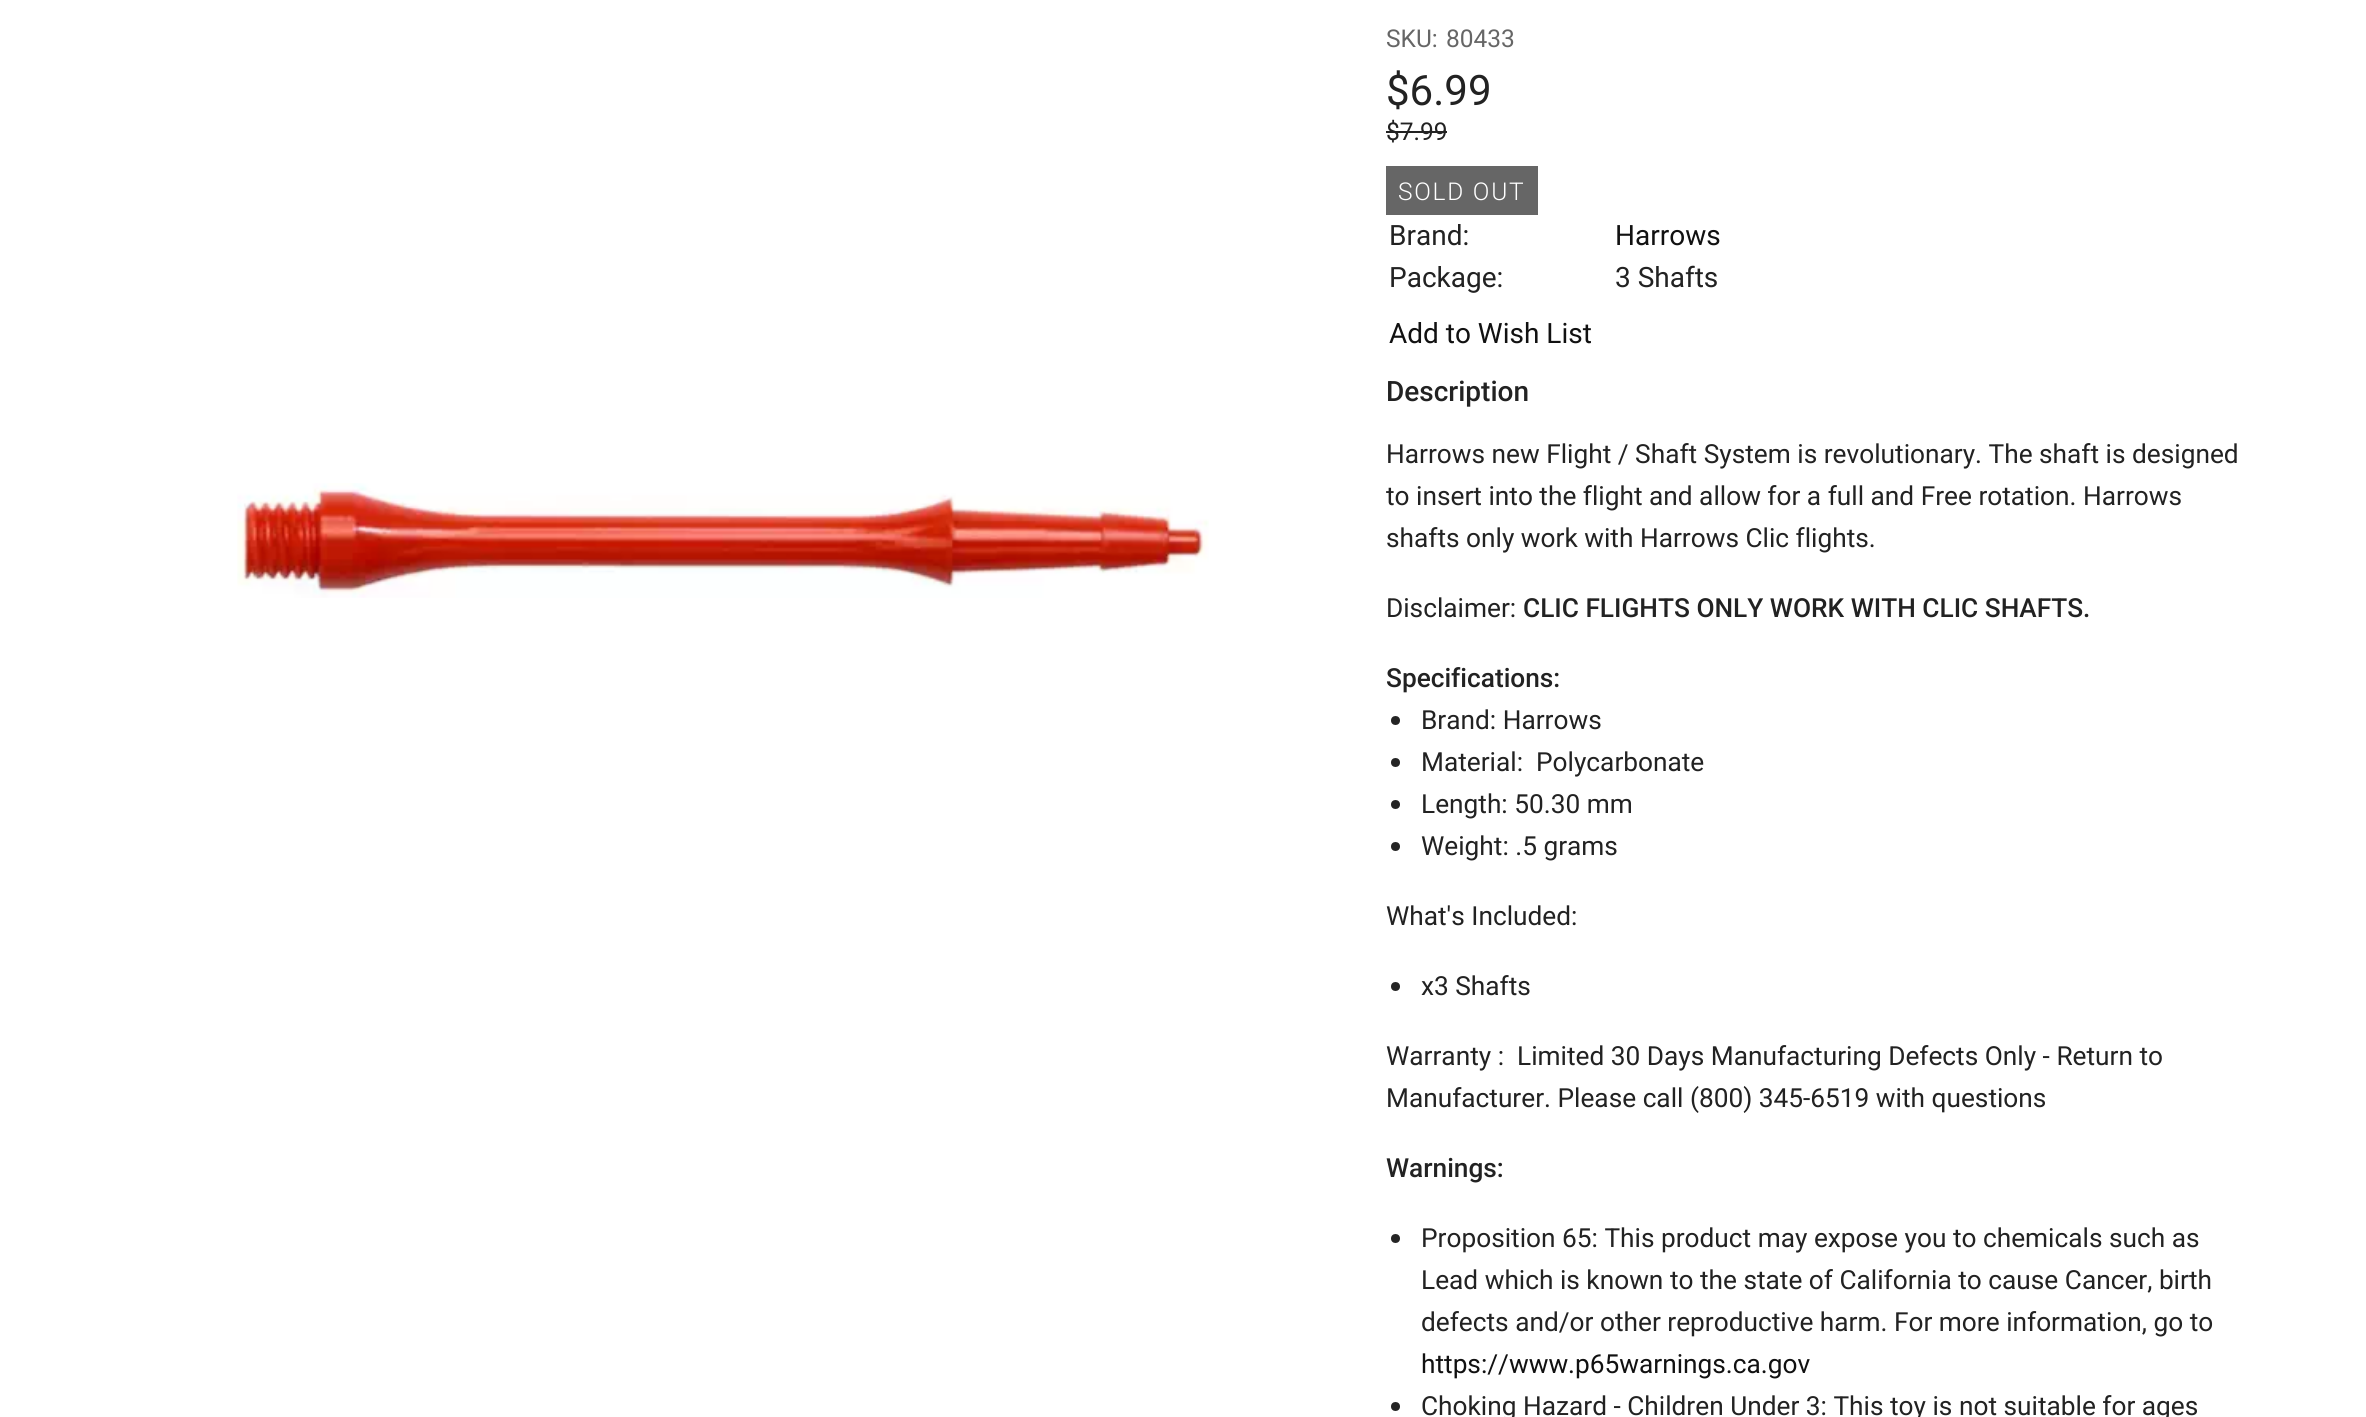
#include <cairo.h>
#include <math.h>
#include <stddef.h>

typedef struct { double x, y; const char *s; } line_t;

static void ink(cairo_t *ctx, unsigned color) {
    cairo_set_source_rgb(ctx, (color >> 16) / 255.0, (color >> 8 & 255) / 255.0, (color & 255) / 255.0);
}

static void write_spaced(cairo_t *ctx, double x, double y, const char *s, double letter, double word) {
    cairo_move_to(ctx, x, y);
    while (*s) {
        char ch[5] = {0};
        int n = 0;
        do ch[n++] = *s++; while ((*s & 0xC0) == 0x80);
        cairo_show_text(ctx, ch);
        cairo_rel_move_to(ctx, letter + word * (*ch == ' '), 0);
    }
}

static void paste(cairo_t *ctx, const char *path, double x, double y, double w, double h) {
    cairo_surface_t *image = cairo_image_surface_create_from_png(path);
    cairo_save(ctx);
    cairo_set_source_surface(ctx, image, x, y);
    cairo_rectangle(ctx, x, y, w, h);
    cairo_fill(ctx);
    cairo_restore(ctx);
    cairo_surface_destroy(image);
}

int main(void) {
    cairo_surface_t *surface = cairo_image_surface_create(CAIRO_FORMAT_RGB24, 2366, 1417);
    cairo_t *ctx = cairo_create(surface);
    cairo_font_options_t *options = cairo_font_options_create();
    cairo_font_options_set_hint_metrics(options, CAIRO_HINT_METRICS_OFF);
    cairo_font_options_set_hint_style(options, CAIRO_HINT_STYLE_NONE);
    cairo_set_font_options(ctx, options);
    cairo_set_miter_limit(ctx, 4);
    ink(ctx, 0xFFFFFF);
    cairo_paint(ctx);
    paste(ctx, "media/1.png", 237, 483, 972, 115);
    cairo_select_font_face(ctx, "Roboto", CAIRO_FONT_SLANT_NORMAL, CAIRO_FONT_WEIGHT_NORMAL);
    cairo_set_font_size(ctx, 24.5);
    ink(ctx, 0x666666);
    cairo_move_to(ctx, 1386, 47);
    cairo_show_text(ctx, "SKU:");
    cairo_move_to(ctx, 1446, 47);
    cairo_show_text(ctx, "80433");
    cairo_set_font_size(ctx, 42);
    ink(ctx, 0x222222);
    cairo_move_to(ctx, 1386, 105);
    cairo_show_text(ctx, "$6.99");
    cairo_set_font_size(ctx, 24.5);
    cairo_move_to(ctx, 1386, 140);
    cairo_show_text(ctx, "$7.99");
    cairo_rectangle(ctx, 1386, 131, 61, 2);
    cairo_fill(ctx);
    ink(ctx, 0x666666);
    cairo_rectangle(ctx, 1386, 166, 152, 49);
    cairo_fill(ctx);
    cairo_select_font_face(ctx, "Roboto Light", CAIRO_FONT_SLANT_NORMAL, CAIRO_FONT_WEIGHT_NORMAL);
    ink(ctx, 0xFFFFFF);
    write_spaced(ctx, 1398, 200, "SOLD OUT", 1.75, 0);
    cairo_select_font_face(ctx, "Roboto", CAIRO_FONT_SLANT_NORMAL, CAIRO_FONT_WEIGHT_NORMAL);
    cairo_set_font_size(ctx, 28);
    ink(ctx, 0x222222);
    cairo_move_to(ctx, 1389, 245);
    cairo_show_text(ctx, "Brand:");
    ink(ctx, 0x111111);
    cairo_move_to(ctx, 1615, 245);
    cairo_show_text(ctx, "Harrows");
    ink(ctx, 0x222222);
    cairo_move_to(ctx, 1389, 287);
    cairo_show_text(ctx, "Package:");
    cairo_move_to(ctx, 1615, 287);
    cairo_show_text(ctx, "3 Shafts");
    ink(ctx, 0x111111);
    cairo_move_to(ctx, 1389, 343);
    cairo_show_text(ctx, "Add to Wish List");
    cairo_select_font_face(ctx, "Roboto Medium", CAIRO_FONT_SLANT_NORMAL, CAIRO_FONT_WEIGHT_NORMAL);
    ink(ctx, 0x222222);
    cairo_move_to(ctx, 1386, 401);
    cairo_show_text(ctx, "Description");
    cairo_select_font_face(ctx, "Roboto", CAIRO_FONT_SLANT_NORMAL, CAIRO_FONT_WEIGHT_NORMAL);
    cairo_set_font_size(ctx, 26.25);
    {
        static const line_t items[] = {
            {1386, 463, "Harrows new Flight / Shaft System is revolutionary. The shaft is designed"},
            {1386, 505, "to insert into the flight and allow for a full and Free rotation. Harrows"},
            {1386, 547, "shafts only work with Harrows Clic flights."},
            {1386, 617, "Disclaimer:"},
        };
        for (size_t i = 0; i < sizeof items / sizeof *items; i++) {
            cairo_move_to(ctx, items[i].x, items[i].y);
            cairo_show_text(ctx, items[i].s);
        }
    }
    cairo_select_font_face(ctx, "Roboto Medium", CAIRO_FONT_SLANT_NORMAL, CAIRO_FONT_WEIGHT_NORMAL);
    cairo_move_to(ctx, 1523, 617);
    cairo_show_text(ctx, "CLIC FLIGHTS ONLY WORK WITH CLIC SHAFTS.");
    cairo_move_to(ctx, 1386, 687);
    cairo_show_text(ctx, "Specifications:");
    ink(ctx, 0x242424);
    cairo_new_path(ctx);
    cairo_arc(ctx, 1395.5, 720.5, 4.5, 0, 2 * M_PI);
    cairo_fill(ctx);
    cairo_select_font_face(ctx, "Roboto", CAIRO_FONT_SLANT_NORMAL, CAIRO_FONT_WEIGHT_NORMAL);
    ink(ctx, 0x222222);
    cairo_move_to(ctx, 1421, 729);
    cairo_show_text(ctx, "Brand: Harrows");
    ink(ctx, 0x242424);
    cairo_new_path(ctx);
    cairo_arc(ctx, 1395.5, 762.5, 4.5, 0, 2 * M_PI);
    cairo_fill(ctx);
    ink(ctx, 0x222222);
    cairo_move_to(ctx, 1421, 771);
    cairo_show_text(ctx, "Material:  Polycarbonate");
    ink(ctx, 0x242424);
    cairo_new_path(ctx);
    cairo_arc(ctx, 1395.5, 804.5, 4.5, 0, 2 * M_PI);
    cairo_fill(ctx);
    ink(ctx, 0x222222);
    cairo_move_to(ctx, 1421, 813);
    cairo_show_text(ctx, "Length: 50.30 mm");
    ink(ctx, 0x242424);
    cairo_new_path(ctx);
    cairo_arc(ctx, 1395.5, 846.5, 4.5, 0, 2 * M_PI);
    cairo_fill(ctx);
    ink(ctx, 0x222222);
    cairo_move_to(ctx, 1421, 855);
    cairo_show_text(ctx, "Weight: .5 grams");
    cairo_move_to(ctx, 1386, 925);
    cairo_show_text(ctx, "What's Included:");
    ink(ctx, 0x242424);
    cairo_new_path(ctx);
    cairo_arc(ctx, 1395.5, 986.5, 4.5, 0, 2 * M_PI);
    cairo_fill(ctx);
    ink(ctx, 0x222222);
    {
        static const line_t items[] = {
            {1421, 995, "x3 Shafts"},
            {1386, 1065, "Warranty :  Limited 30 Days Manufacturing Defects Only - Return to"},
            {1386, 1107, "Manufacturer. Please call (800) 345-6519 with questions"},
        };
        for (size_t i = 0; i < sizeof items / sizeof *items; i++) {
            cairo_move_to(ctx, items[i].x, items[i].y);
            cairo_show_text(ctx, items[i].s);
        }
    }
    cairo_select_font_face(ctx, "Roboto Medium", CAIRO_FONT_SLANT_NORMAL, CAIRO_FONT_WEIGHT_NORMAL);
    cairo_move_to(ctx, 1386, 1177);
    cairo_show_text(ctx, "Warnings:");
    ink(ctx, 0x242424);
    cairo_new_path(ctx);
    cairo_arc(ctx, 1395.5, 1238.5, 4.5, 0, 2 * M_PI);
    cairo_fill(ctx);
    cairo_select_font_face(ctx, "Roboto", CAIRO_FONT_SLANT_NORMAL, CAIRO_FONT_WEIGHT_NORMAL);
    ink(ctx, 0x222222);
    {
        static const line_t items[] = {
            {1421, 1247, "Proposition 65: This product may expose you to chemicals such as"},
            {1421, 1289, "Lead which is known to the state of California to cause Cancer, birth"},
            {1421, 1331, "defects and/or other reproductive harm. For more information, go to"},
        };
        for (size_t i = 0; i < sizeof items / sizeof *items; i++) {
            cairo_move_to(ctx, items[i].x, items[i].y);
            cairo_show_text(ctx, items[i].s);
        }
    }
    ink(ctx, 0x111111);
    cairo_move_to(ctx, 1421, 1373);
    cairo_show_text(ctx, "https://www.p65warnings.ca.gov");
    ink(ctx, 0x242424);
    cairo_new_path(ctx);
    cairo_arc(ctx, 1395.5, 1406.5, 4.5, 0, 2 * M_PI);
    cairo_fill(ctx);
    ink(ctx, 0x222222);
    cairo_move_to(ctx, 1421, 1415);
    cairo_show_text(ctx, "Choking Hazard - Children Under 3: This toy is not suitable for ages");
    cairo_surface_write_to_png(surface, "image.png");
    cairo_font_options_destroy(options);
    cairo_destroy(ctx);
    cairo_surface_destroy(surface);
    return 0;
}
